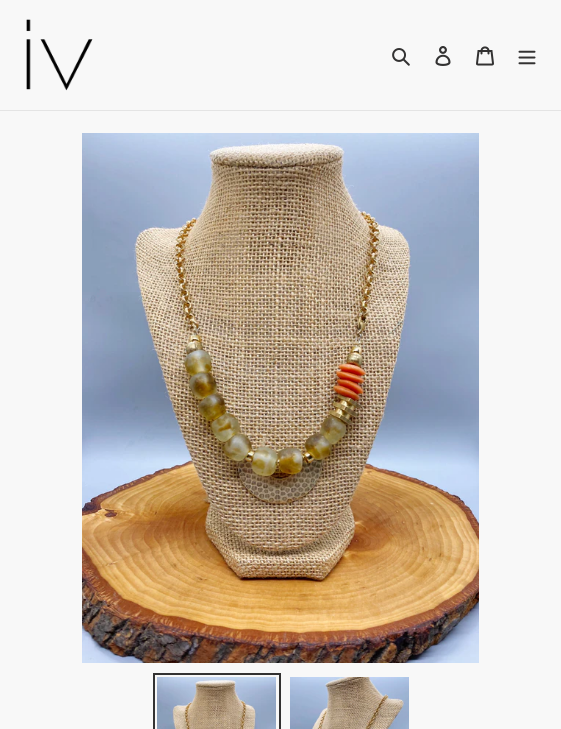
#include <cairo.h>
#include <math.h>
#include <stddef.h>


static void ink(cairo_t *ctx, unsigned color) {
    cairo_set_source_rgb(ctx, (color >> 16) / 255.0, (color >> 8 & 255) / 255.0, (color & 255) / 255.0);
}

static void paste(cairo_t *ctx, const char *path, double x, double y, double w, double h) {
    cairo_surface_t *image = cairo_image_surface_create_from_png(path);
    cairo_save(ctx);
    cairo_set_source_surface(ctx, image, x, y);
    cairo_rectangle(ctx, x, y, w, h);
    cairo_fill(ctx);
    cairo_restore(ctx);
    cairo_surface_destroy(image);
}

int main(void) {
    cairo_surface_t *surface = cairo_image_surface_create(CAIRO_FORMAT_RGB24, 561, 729);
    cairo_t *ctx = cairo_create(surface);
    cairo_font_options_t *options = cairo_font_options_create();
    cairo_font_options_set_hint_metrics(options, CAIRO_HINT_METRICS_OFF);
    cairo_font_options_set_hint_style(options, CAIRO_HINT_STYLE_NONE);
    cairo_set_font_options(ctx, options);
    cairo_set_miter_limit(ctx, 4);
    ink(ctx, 0xF8F8F8);
    cairo_paint(ctx);
    ink(ctx, 0xE4E4E4);
    cairo_rectangle(ctx, 0, 110, 561, 1);
    cairo_fill(ctx);
    paste(ctx, "media/1.png", 26, 19, 67, 72);
    paste(ctx, "media/2.png", 392, 48, 18, 18);
    paste(ctx, "media/3.png", 435, 46, 16, 20);
    paste(ctx, "media/4.png", 476, 46, 18, 20);
    paste(ctx, "media/5.png", 518, 50, 18, 15);
    paste(ctx, "media/6.png", 82, 133, 397, 530);
    cairo_rectangle(ctx, 154, 674, 126, 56);
    ink(ctx, 0x333232);
    cairo_stroke(ctx);
    paste(ctx, "media/7.png", 157, 677, 119, 52);
    paste(ctx, "media/8.png", 290, 677, 119, 52);
    cairo_surface_write_to_png(surface, "image.png");
    cairo_font_options_destroy(options);
    cairo_destroy(ctx);
    cairo_surface_destroy(surface);
    return 0;
}
